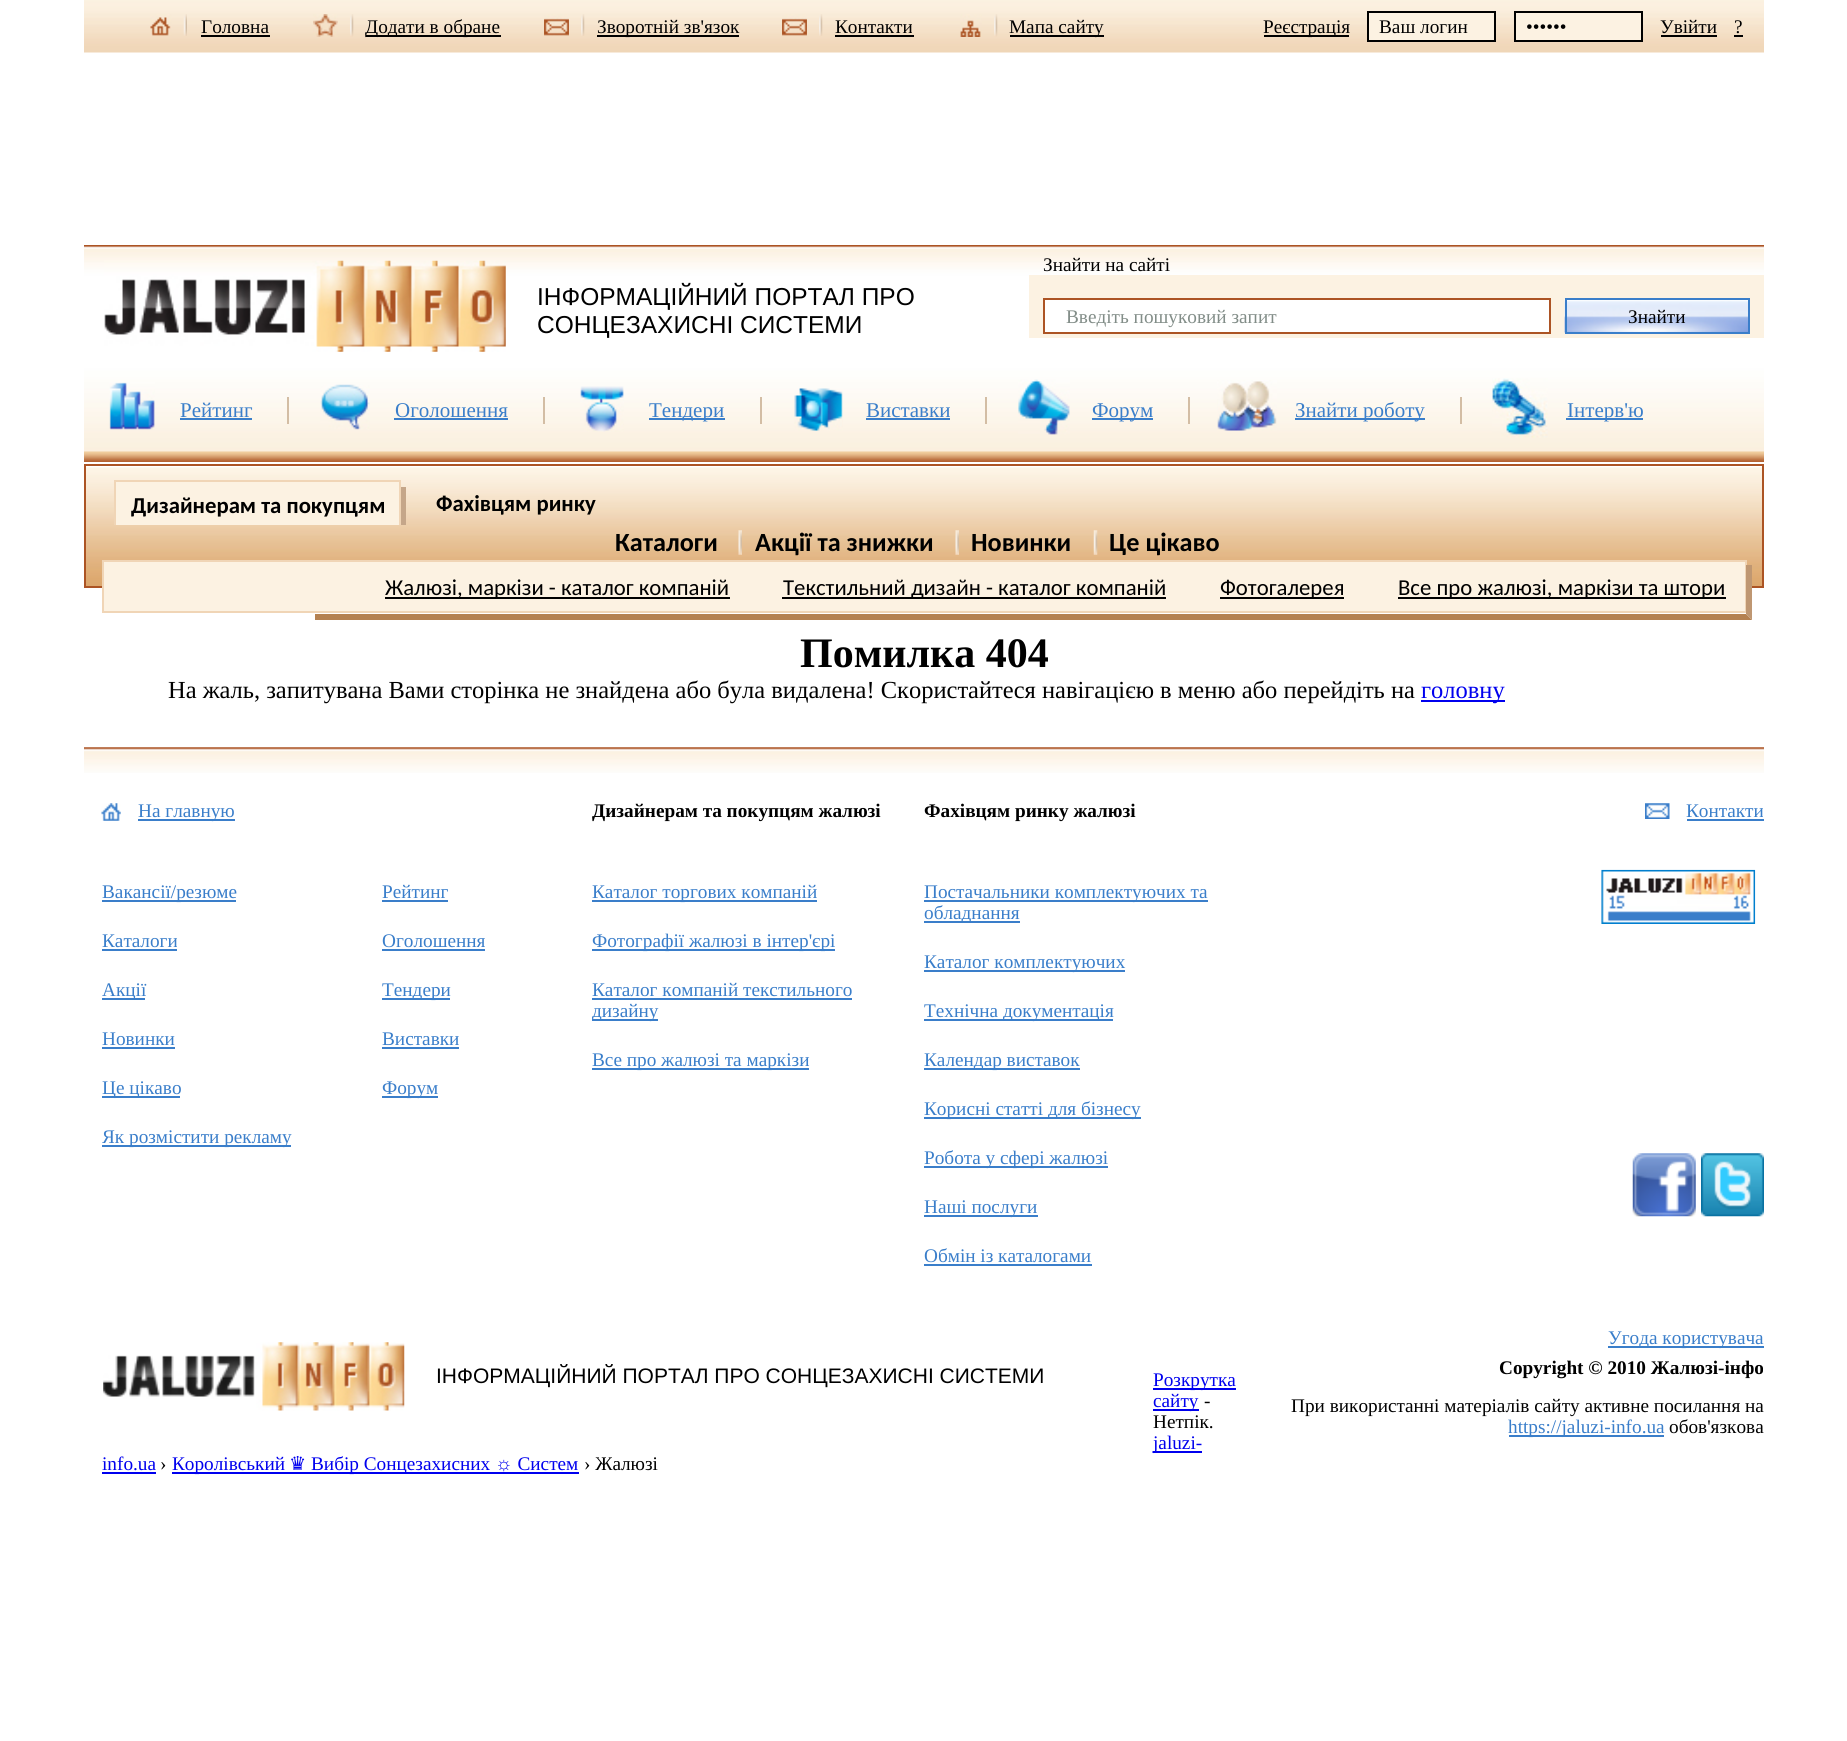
#include <cairo.h>
#include <math.h>
#include <stddef.h>

typedef struct { double x, y, w, h; unsigned color; } box_t;

static void ink(cairo_t *ctx, unsigned color) {
    cairo_set_source_rgb(ctx, (color >> 16) / 255.0, (color >> 8 & 255) / 255.0, (color & 255) / 255.0);
}

static void paste(cairo_t *ctx, const char *path, double x, double y, double w, double h) {
    cairo_surface_t *image = cairo_image_surface_create_from_png(path);
    cairo_save(ctx);
    cairo_set_source_surface(ctx, image, x, y);
    cairo_rectangle(ctx, x, y, w, h);
    cairo_fill(ctx);
    cairo_restore(ctx);
    cairo_surface_destroy(image);
}

int main(void) {
    cairo_surface_t *surface = cairo_image_surface_create(CAIRO_FORMAT_RGB24, 1847, 1741);
    cairo_t *ctx = cairo_create(surface);
    cairo_font_options_t *options = cairo_font_options_create();
    cairo_font_options_set_hint_metrics(options, CAIRO_HINT_METRICS_OFF);
    cairo_font_options_set_hint_style(options, CAIRO_HINT_STYLE_NONE);
    cairo_set_font_options(ctx, options);
    cairo_set_miter_limit(ctx, 4);
    ink(ctx, 0xFFFFFF);
    cairo_paint(ctx);
    paste(ctx, "media/1.png", 84, 0, 1680, 53);
    paste(ctx, "media/2.png", 150, 14, 37, 22);
    cairo_select_font_face(ctx, "Liberation Serif", CAIRO_FONT_SLANT_NORMAL, CAIRO_FONT_WEIGHT_NORMAL);
    cairo_set_font_size(ctx, 19.25);
    ink(ctx, 0x000000);
    cairo_move_to(ctx, 201, 33);
    cairo_show_text(ctx, "Головна");
    cairo_rectangle(ctx, 201, 35, 69, 2);
    cairo_fill(ctx);
    paste(ctx, "media/3.png", 313, 14, 41, 23);
    paste(ctx, "media/4.png", 313, 21, 25, 16);
    cairo_rectangle(ctx, 366, 35, 135, 2);
    cairo_fill(ctx);
    cairo_move_to(ctx, 365, 33);
    cairo_show_text(ctx, "Додати в обране");
    paste(ctx, "media/5.png", 544, 14, 41, 22);
    paste(ctx, "media/6.png", 544, 19, 25, 17);
    cairo_rectangle(ctx, 597, 35, 142, 2);
    cairo_fill(ctx);
    cairo_move_to(ctx, 597, 33);
    cairo_show_text(ctx, "Зворотній зв'язок");
    paste(ctx, "media/7.png", 782, 14, 41, 22);
    paste(ctx, "media/8.png", 782, 19, 25, 17);
    cairo_move_to(ctx, 835, 33);
    cairo_show_text(ctx, "Контакти");
    cairo_rectangle(ctx, 835, 35, 79, 2);
    cairo_fill(ctx);
    paste(ctx, "media/9.png", 960, 14, 38, 23);
    paste(ctx, "media/10.png", 960, 36, 21, 1);
    cairo_rectangle(ctx, 1010, 35, 94, 2);
    cairo_fill(ctx);
    cairo_move_to(ctx, 1009, 33);
    cairo_show_text(ctx, "Мапа сайту");
    cairo_rectangle(ctx, 1264, 35, 85, 2);
    cairo_fill(ctx);
    cairo_move_to(ctx, 1263, 33);
    cairo_show_text(ctx, "Реєстрація");
    ink(ctx, 0xFCF2E2);
    cairo_rectangle(ctx, 1368, 12, 127, 29);
    cairo_fill_preserve(ctx);
    ink(ctx, 0x000000);
    cairo_stroke(ctx);
    cairo_move_to(ctx, 1379, 33);
    cairo_show_text(ctx, "Ваш логин");
    ink(ctx, 0xFCF2E2);
    cairo_rectangle(ctx, 1515, 12, 127, 29);
    cairo_fill_preserve(ctx);
    ink(ctx, 0x000000);
    cairo_stroke(ctx);
    cairo_move_to(ctx, 1526, 33);
    cairo_show_text(ctx, "••••••");
    cairo_move_to(ctx, 1660, 33);
    cairo_show_text(ctx, "Увійти");
    cairo_rectangle(ctx, 1661, 35, 56, 2);
    cairo_fill(ctx);
    cairo_move_to(ctx, 1734, 33);
    cairo_show_text(ctx, "?");
    cairo_rectangle(ctx, 1734, 35, 9, 2);
    cairo_fill(ctx);
    paste(ctx, "media/11.png", 84, 245, 1680, 217);
    paste(ctx, "media/12.png", 104, 260, 402, 92);
    cairo_select_font_face(ctx, "Liberation Sans", CAIRO_FONT_SLANT_NORMAL, CAIRO_FONT_WEIGHT_NORMAL);
    cairo_set_font_size(ctx, 24.5);
    cairo_move_to(ctx, 537, 305);
    cairo_show_text(ctx, "ІНФОРМАЦІЙНИЙ ПОРТАЛ ПРО");
    cairo_move_to(ctx, 537, 333);
    cairo_show_text(ctx, "СОНЦЕЗАХИСНІ СИСТЕМИ");
    cairo_select_font_face(ctx, "Liberation Serif", CAIRO_FONT_SLANT_NORMAL, CAIRO_FONT_WEIGHT_NORMAL);
    cairo_set_font_size(ctx, 19.25);
    cairo_move_to(ctx, 1043, 271);
    cairo_show_text(ctx, "Знайти на сайті");
    ink(ctx, 0xFCF2E2);
    cairo_rectangle(ctx, 1029, 275, 735, 63);
    cairo_fill(ctx);
    ink(ctx, 0xFFFFFF);
    cairo_rectangle(ctx, 1044, 299, 506, 34);
    cairo_fill_preserve(ctx);
    ink(ctx, 0xAC5424);
    cairo_stroke(ctx);
    ink(ctx, 0x828D88);
    cairo_move_to(ctx, 1066, 323);
    cairo_show_text(ctx, "Введіть пошуковий запит");
    paste(ctx, "media/13.png", 1564, 299, 184, 34);
    cairo_rectangle(ctx, 1566, 299, 183, 34);
    ink(ctx, 0x3A7ECA);
    cairo_stroke(ctx);
    ink(ctx, 0x000000);
    cairo_move_to(ctx, 1628, 323);
    cairo_show_text(ctx, "Знайти");
    paste(ctx, "media/14.png", 109, 382, 46, 48);
    ink(ctx, 0xD3BDA4);
    cairo_rectangle(ctx, 287, 397, 2, 27);
    cairo_fill(ctx);
    cairo_set_font_size(ctx, 21);
    ink(ctx, 0x3A7ECA);
    cairo_move_to(ctx, 180, 417);
    cairo_show_text(ctx, "Рейтинг");
    cairo_rectangle(ctx, 180, 418, 72, 2);
    cairo_fill(ctx);
    paste(ctx, "media/15.png", 320, 384, 50, 46);
    ink(ctx, 0xD3BDA4);
    cairo_rectangle(ctx, 543, 397, 2, 27);
    cairo_fill(ctx);
    ink(ctx, 0x3A7ECA);
    cairo_move_to(ctx, 395, 417);
    cairo_show_text(ctx, "Оголошення");
    cairo_rectangle(ctx, 394, 418, 114, 2);
    cairo_fill(ctx);
    paste(ctx, "media/16.png", 580, 386, 44, 46);
    ink(ctx, 0xD3BDA4);
    cairo_rectangle(ctx, 760, 397, 2, 27);
    cairo_fill(ctx);
    ink(ctx, 0x3A7ECA);
    cairo_rectangle(ctx, 649, 418, 76, 2);
    cairo_fill(ctx);
    cairo_move_to(ctx, 649, 417);
    cairo_show_text(ctx, "Тендери");
    paste(ctx, "media/17.png", 794, 388, 49, 43);
    ink(ctx, 0xD3BDA4);
    cairo_rectangle(ctx, 985, 397, 2, 27);
    cairo_fill(ctx);
    ink(ctx, 0x3A7ECA);
    cairo_move_to(ctx, 866, 417);
    cairo_show_text(ctx, "Виставки");
    cairo_rectangle(ctx, 866, 418, 84, 2);
    cairo_fill(ctx);
    paste(ctx, "media/18.png", 1018, 379, 52, 56);
    ink(ctx, 0xD3BDA4);
    cairo_rectangle(ctx, 1188, 397, 2, 27);
    cairo_fill(ctx);
    ink(ctx, 0x3A7ECA);
    cairo_rectangle(ctx, 1092, 418, 61, 2);
    cairo_fill(ctx);
    cairo_move_to(ctx, 1092, 417);
    cairo_show_text(ctx, "Форум");
    paste(ctx, "media/19.png", 1217, 380, 60, 51);
    ink(ctx, 0xD3BDA4);
    cairo_rectangle(ctx, 1460, 397, 2, 27);
    cairo_fill(ctx);
    ink(ctx, 0x3A7ECA);
    cairo_rectangle(ctx, 1295, 418, 130, 2);
    cairo_fill(ctx);
    cairo_move_to(ctx, 1295, 417);
    cairo_show_text(ctx, "Знайти роботу");
    paste(ctx, "media/20.png", 1492, 378, 56, 60);
    cairo_rectangle(ctx, 1566, 418, 77, 2);
    cairo_fill(ctx);
    cairo_move_to(ctx, 1567, 417);
    cairo_show_text(ctx, "Інтерв'ю");
    paste(ctx, "media/21.png", 86, 467, 1676, 119);
    cairo_rectangle(ctx, 85, 465, 1678, 122);
    ink(ctx, 0xAC5424);
    cairo_stroke(ctx);
    {
        static const box_t items[] = {
            {116, 482, 283, 43, 0xFCF2E2},
            {114, 480, 287, 2, 0xF0D5B6},
            {399, 480, 2, 45, 0xF0D5B6},
            {114, 480, 2, 45, 0xF0D5B6},
            {401, 487, 5, 38, 0xC5A689},
        };
        for (size_t i = 0; i < sizeof items / sizeof *items; i++) {
            ink(ctx, items[i].color);
            cairo_rectangle(ctx, items[i].x, items[i].y, items[i].w, items[i].h);
            cairo_fill(ctx);
        }
    }
    cairo_select_font_face(ctx, "Carlito", CAIRO_FONT_SLANT_NORMAL, CAIRO_FONT_WEIGHT_BOLD);
    cairo_set_font_size(ctx, 22.75);
    ink(ctx, 0x000000);
    cairo_move_to(ctx, 131, 513);
    cairo_show_text(ctx, "Дизайнерам та покупцям");
    cairo_move_to(ctx, 436, 511);
    cairo_show_text(ctx, "Фахівцям ринку");
    cairo_set_font_size(ctx, 26.25);
    cairo_move_to(ctx, 615, 551);
    cairo_show_text(ctx, "Каталоги");
    paste(ctx, "media/22.png", 738, 530, 4, 25);
    cairo_move_to(ctx, 755, 551);
    cairo_show_text(ctx, "Акції та знижки");
    paste(ctx, "media/22.png", 955, 530, 4, 25);
    cairo_move_to(ctx, 971, 551);
    cairo_show_text(ctx, "Новинки");
    paste(ctx, "media/23.png", 1093, 530, 5, 25);
    cairo_move_to(ctx, 1109, 551);
    cairo_show_text(ctx, "Це цікаво");
    ink(ctx, 0xFCF2E2);
    cairo_rectangle(ctx, 103, 561, 1643, 51);
    cairo_fill_preserve(ctx);
    ink(ctx, 0xF0D5B6);
    cairo_stroke(ctx);
    ink(ctx, 0xBF9772);
    cairo_new_path(ctx);
    cairo_move_to(ctx, 1752, 565);
    cairo_line_to(ctx, 1752, 620);
    cairo_line_to(ctx, 1746, 614);
    cairo_line_to(ctx, 1746, 565);
    cairo_close_path(ctx);
    cairo_fill(ctx);
    ink(ctx, 0xB48151);
    cairo_new_path(ctx);
    cairo_move_to(ctx, 1752, 620);
    cairo_line_to(ctx, 315, 620);
    cairo_line_to(ctx, 315, 614);
    cairo_line_to(ctx, 1746, 614);
    cairo_close_path(ctx);
    cairo_fill(ctx);
    ink(ctx, 0x000000);
    cairo_rectangle(ctx, 385, 597, 345, 2);
    cairo_fill(ctx);
    cairo_select_font_face(ctx, "Carlito", CAIRO_FONT_SLANT_NORMAL, CAIRO_FONT_WEIGHT_NORMAL);
    cairo_set_font_size(ctx, 22.75);
    cairo_move_to(ctx, 385, 595);
    cairo_show_text(ctx, "Жалюзі, маркізи - каталог компаній");
    cairo_rectangle(ctx, 782, 597, 384, 2);
    cairo_fill(ctx);
    cairo_move_to(ctx, 783, 595);
    cairo_show_text(ctx, "Текстильний дизайн - каталог компаній");
    cairo_rectangle(ctx, 1220, 597, 124, 2);
    cairo_fill(ctx);
    cairo_move_to(ctx, 1220, 595);
    cairo_show_text(ctx, "Фотогалерея");
    cairo_rectangle(ctx, 1398, 597, 328, 2);
    cairo_fill(ctx);
    cairo_move_to(ctx, 1398, 595);
    cairo_show_text(ctx, "Все про жалюзі, маркізи та штори");
    cairo_select_font_face(ctx, "Liberation Serif", CAIRO_FONT_SLANT_NORMAL, CAIRO_FONT_WEIGHT_BOLD);
    cairo_set_font_size(ctx, 42);
    cairo_move_to(ctx, 800, 667);
    cairo_show_text(ctx, "Помилка 404");
    cairo_select_font_face(ctx, "Liberation Serif", CAIRO_FONT_SLANT_NORMAL, CAIRO_FONT_WEIGHT_NORMAL);
    cairo_set_font_size(ctx, 24.5);
    cairo_move_to(ctx, 168, 698);
    cairo_show_text(ctx, "На жаль, запитувана Вами сторінка не знайдена або була видалена! Скористайтеся навігацією в меню або перейдіть на");
    ink(ctx, 0x0000EE);
    cairo_rectangle(ctx, 1421, 700, 84, 2);
    cairo_fill(ctx);
    cairo_move_to(ctx, 1421, 698);
    cairo_show_text(ctx, "головну");
    paste(ctx, "media/24.png", 84, 747, 1680, 26);
    paste(ctx, "media/25.png", 101, 803, 20, 18);
    ink(ctx, 0x3A7ECA);
    cairo_rectangle(ctx, 138, 819, 97, 2);
    cairo_fill(ctx);
    cairo_set_font_size(ctx, 19.25);
    cairo_move_to(ctx, 138, 817);
    cairo_show_text(ctx, "На главную");
    cairo_rectangle(ctx, 102, 900, 134, 2);
    cairo_fill(ctx);
    cairo_move_to(ctx, 102, 898);
    cairo_show_text(ctx, "Вакансії/резюме");
    cairo_move_to(ctx, 102, 947);
    cairo_show_text(ctx, "Каталоги");
    cairo_rectangle(ctx, 102, 949, 75, 2);
    cairo_fill(ctx);
    cairo_rectangle(ctx, 102, 998, 43, 2);
    cairo_fill(ctx);
    cairo_move_to(ctx, 102, 996);
    cairo_show_text(ctx, "Акції");
    cairo_move_to(ctx, 102, 1045);
    cairo_show_text(ctx, "Новинки");
    cairo_rectangle(ctx, 102, 1047, 73, 2);
    cairo_fill(ctx);
    cairo_rectangle(ctx, 102, 1096, 78, 2);
    cairo_fill(ctx);
    cairo_move_to(ctx, 102, 1094);
    cairo_show_text(ctx, "Це цікаво");
    cairo_rectangle(ctx, 102, 1145, 189, 2);
    cairo_fill(ctx);
    cairo_move_to(ctx, 102, 1143);
    cairo_show_text(ctx, "Як розмістити рекламу");
    cairo_move_to(ctx, 382, 898);
    cairo_show_text(ctx, "Рейтинг");
    cairo_rectangle(ctx, 382, 900, 66, 2);
    cairo_fill(ctx);
    cairo_move_to(ctx, 382, 947);
    cairo_show_text(ctx, "Оголошення");
    cairo_rectangle(ctx, 382, 949, 103, 2);
    cairo_fill(ctx);
    cairo_rectangle(ctx, 382, 998, 68, 2);
    cairo_fill(ctx);
    cairo_move_to(ctx, 382, 996);
    cairo_show_text(ctx, "Тендери");
    cairo_move_to(ctx, 382, 1045);
    cairo_show_text(ctx, "Виставки");
    cairo_rectangle(ctx, 382, 1047, 77, 2);
    cairo_fill(ctx);
    cairo_rectangle(ctx, 382, 1096, 56, 2);
    cairo_fill(ctx);
    cairo_move_to(ctx, 382, 1094);
    cairo_show_text(ctx, "Форум");
    cairo_select_font_face(ctx, "Liberation Serif", CAIRO_FONT_SLANT_NORMAL, CAIRO_FONT_WEIGHT_BOLD);
    ink(ctx, 0x000000);
    cairo_move_to(ctx, 592, 817);
    cairo_show_text(ctx, "Дизайнерам та покупцям жалюзі");
    ink(ctx, 0x3A7ECA);
    cairo_rectangle(ctx, 592, 900, 225, 2);
    cairo_fill(ctx);
    cairo_select_font_face(ctx, "Liberation Serif", CAIRO_FONT_SLANT_NORMAL, CAIRO_FONT_WEIGHT_NORMAL);
    cairo_move_to(ctx, 592, 898);
    cairo_show_text(ctx, "Каталог торгових компаній");
    cairo_rectangle(ctx, 592, 949, 243, 2);
    cairo_fill(ctx);
    cairo_move_to(ctx, 592, 947);
    cairo_show_text(ctx, "Фотографії жалюзі в інтер'єрі");
    cairo_move_to(ctx, 592, 996);
    cairo_show_text(ctx, "Каталог компаній текстильного");
    cairo_rectangle(ctx, 592, 998, 260, 2);
    cairo_fill(ctx);
    cairo_rectangle(ctx, 592, 1019, 66, 2);
    cairo_fill(ctx);
    cairo_move_to(ctx, 592, 1017);
    cairo_show_text(ctx, "дизайну");
    cairo_rectangle(ctx, 592, 1068, 217, 2);
    cairo_fill(ctx);
    cairo_move_to(ctx, 592, 1066);
    cairo_show_text(ctx, "Все про жалюзі та маркізи");
    cairo_select_font_face(ctx, "Liberation Serif", CAIRO_FONT_SLANT_NORMAL, CAIRO_FONT_WEIGHT_BOLD);
    ink(ctx, 0x000000);
    cairo_move_to(ctx, 924, 817);
    cairo_show_text(ctx, "Фахівцям ринку жалюзі");
    ink(ctx, 0x3A7ECA);
    cairo_rectangle(ctx, 924, 900, 284, 2);
    cairo_fill(ctx);
    cairo_select_font_face(ctx, "Liberation Serif", CAIRO_FONT_SLANT_NORMAL, CAIRO_FONT_WEIGHT_NORMAL);
    cairo_move_to(ctx, 924, 898);
    cairo_show_text(ctx, "Постачальники комплектуючих та");
    cairo_rectangle(ctx, 924, 921, 96, 2);
    cairo_fill(ctx);
    cairo_move_to(ctx, 924, 919);
    cairo_show_text(ctx, "обладнання");
    cairo_rectangle(ctx, 924, 970, 201, 2);
    cairo_fill(ctx);
    cairo_move_to(ctx, 924, 968);
    cairo_show_text(ctx, "Каталог комплектуючих");
    cairo_rectangle(ctx, 924, 1019, 189, 2);
    cairo_fill(ctx);
    cairo_move_to(ctx, 924, 1017);
    cairo_show_text(ctx, "Технічна документація");
    cairo_rectangle(ctx, 924, 1068, 156, 2);
    cairo_fill(ctx);
    cairo_move_to(ctx, 924, 1066);
    cairo_show_text(ctx, "Календар виставок");
    cairo_rectangle(ctx, 924, 1117, 217, 2);
    cairo_fill(ctx);
    cairo_move_to(ctx, 924, 1115);
    cairo_show_text(ctx, "Корисні статті для бізнесу");
    cairo_rectangle(ctx, 924, 1166, 184, 2);
    cairo_fill(ctx);
    cairo_move_to(ctx, 924, 1164);
    cairo_show_text(ctx, "Робота у сфері жалюзі");
    cairo_rectangle(ctx, 924, 1215, 114, 2);
    cairo_fill(ctx);
    cairo_move_to(ctx, 924, 1213);
    cairo_show_text(ctx, "Наші послуги");
    cairo_move_to(ctx, 924, 1262);
    cairo_show_text(ctx, "Обмін із каталогами");
    cairo_rectangle(ctx, 924, 1264, 168, 2);
    cairo_fill(ctx);
    paste(ctx, "media/26.png", 1645, 803, 25, 16);
    cairo_move_to(ctx, 1686, 817);
    cairo_show_text(ctx, "Контакти");
    cairo_rectangle(ctx, 1687, 819, 77, 2);
    cairo_fill(ctx);
    paste(ctx, "media/27.png", 1601, 869, 155, 55);
    paste(ctx, "media/28.png", 1632, 1153, 64, 64);
    paste(ctx, "media/29.png", 1701, 1153, 63, 64);
    paste(ctx, "media/30.png", 103, 1342, 302, 69);
    cairo_select_font_face(ctx, "Liberation Sans", CAIRO_FONT_SLANT_NORMAL, CAIRO_FONT_WEIGHT_NORMAL);
    cairo_set_font_size(ctx, 21);
    ink(ctx, 0x000000);
    cairo_move_to(ctx, 436, 1383);
    cairo_show_text(ctx, "ІНФОРМАЦІЙНИЙ ПОРТАЛ ПРО СОНЦЕЗАХИСНІ СИСТЕМИ");
    ink(ctx, 0x3A7ECA);
    cairo_rectangle(ctx, 1608, 1346, 156, 2);
    cairo_fill(ctx);
    cairo_select_font_face(ctx, "Liberation Serif", CAIRO_FONT_SLANT_NORMAL, CAIRO_FONT_WEIGHT_NORMAL);
    cairo_set_font_size(ctx, 19.25);
    cairo_move_to(ctx, 1608, 1344);
    cairo_show_text(ctx, "Угода користувача");
    cairo_select_font_face(ctx, "Liberation Serif", CAIRO_FONT_SLANT_NORMAL, CAIRO_FONT_WEIGHT_BOLD);
    ink(ctx, 0x000000);
    cairo_move_to(ctx, 1499, 1374);
    cairo_show_text(ctx, "Copyright © 2010 Жалюзі-інфо");
    cairo_select_font_face(ctx, "Liberation Serif", CAIRO_FONT_SLANT_NORMAL, CAIRO_FONT_WEIGHT_NORMAL);
    cairo_move_to(ctx, 1291, 1412);
    cairo_show_text(ctx, "При використанні матеріалів сайту активне посилання на");
    ink(ctx, 0x3A7ECA);
    cairo_rectangle(ctx, 1509, 1435, 155, 2);
    cairo_fill(ctx);
    cairo_move_to(ctx, 1508, 1433);
    cairo_show_text(ctx, "https://jaluzi-info.ua");
    ink(ctx, 0x000000);
    cairo_move_to(ctx, 1669, 1433);
    cairo_show_text(ctx, "обов'язкова");
    ink(ctx, 0x0000EE);
    cairo_rectangle(ctx, 1153, 1388, 83, 2);
    cairo_fill(ctx);
    cairo_move_to(ctx, 1153, 1386);
    cairo_show_text(ctx, "Розкрутка");
    cairo_rectangle(ctx, 1153, 1409, 46, 2);
    cairo_fill(ctx);
    cairo_move_to(ctx, 1153, 1407);
    cairo_show_text(ctx, "сайту");
    ink(ctx, 0x000000);
    cairo_move_to(ctx, 1204, 1407);
    cairo_show_text(ctx, "-");
    cairo_move_to(ctx, 1153, 1428);
    cairo_show_text(ctx, "Нетпік.");
    ink(ctx, 0x0000EE);
    cairo_rectangle(ctx, 1153, 1451, 49, 2);
    cairo_fill(ctx);
    cairo_move_to(ctx, 1153, 1449);
    cairo_show_text(ctx, "jaluzi-");
    cairo_move_to(ctx, 102, 1470);
    cairo_show_text(ctx, "info.ua");
    cairo_rectangle(ctx, 102, 1472, 54, 2);
    cairo_fill(ctx);
    ink(ctx, 0x000000);
    cairo_move_to(ctx, 160, 1470);
    cairo_show_text(ctx, "›");
    ink(ctx, 0x0000EE);
    cairo_rectangle(ctx, 172, 1472, 407, 2);
    cairo_fill(ctx);
    cairo_move_to(ctx, 172, 1470);
    cairo_show_text(ctx, "Королівський");
    cairo_select_font_face(ctx, "DejaVu Sans", CAIRO_FONT_SLANT_NORMAL, CAIRO_FONT_WEIGHT_NORMAL);
    cairo_move_to(ctx, 289, 1470);
    cairo_show_text(ctx, "♛");
    cairo_select_font_face(ctx, "Liberation Serif", CAIRO_FONT_SLANT_NORMAL, CAIRO_FONT_WEIGHT_NORMAL);
    cairo_move_to(ctx, 311, 1470);
    cairo_show_text(ctx, "Вибір Сонцезахисних ☼ Систем");
    ink(ctx, 0x000000);
    cairo_move_to(ctx, 584, 1470);
    cairo_show_text(ctx, "› Жалюзі");
    cairo_surface_write_to_png(surface, "image.png");
    cairo_font_options_destroy(options);
    cairo_destroy(ctx);
    cairo_surface_destroy(surface);
    return 0;
}
